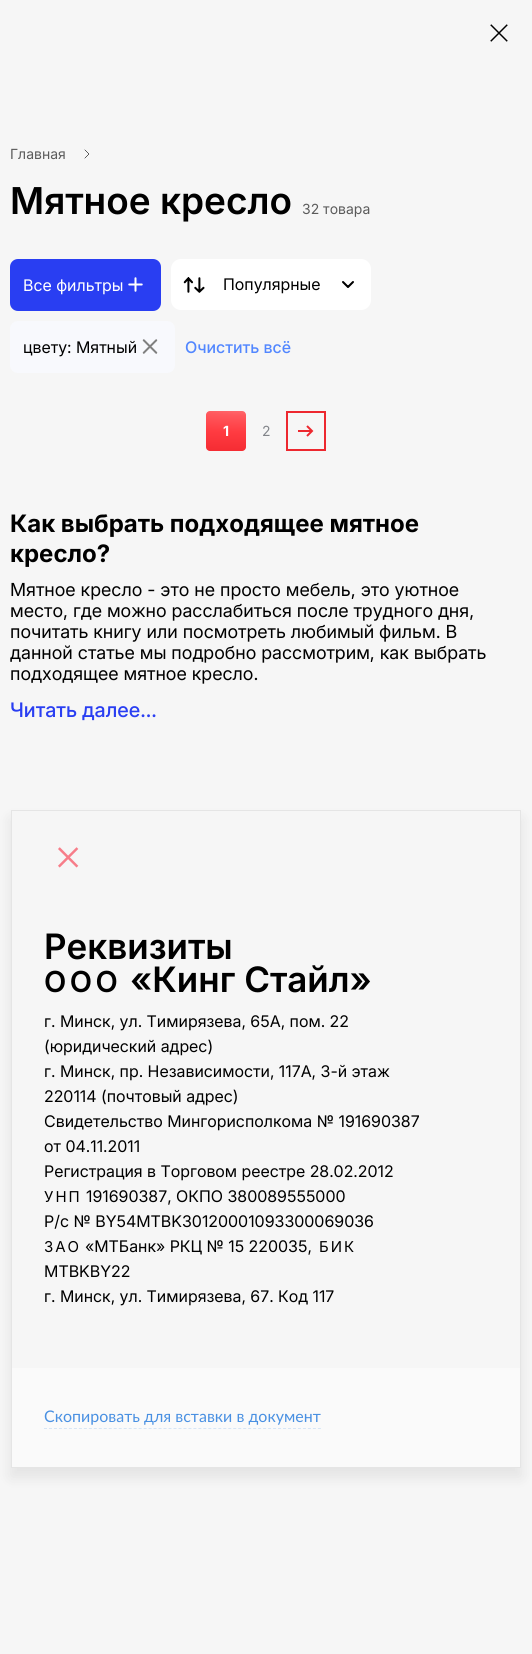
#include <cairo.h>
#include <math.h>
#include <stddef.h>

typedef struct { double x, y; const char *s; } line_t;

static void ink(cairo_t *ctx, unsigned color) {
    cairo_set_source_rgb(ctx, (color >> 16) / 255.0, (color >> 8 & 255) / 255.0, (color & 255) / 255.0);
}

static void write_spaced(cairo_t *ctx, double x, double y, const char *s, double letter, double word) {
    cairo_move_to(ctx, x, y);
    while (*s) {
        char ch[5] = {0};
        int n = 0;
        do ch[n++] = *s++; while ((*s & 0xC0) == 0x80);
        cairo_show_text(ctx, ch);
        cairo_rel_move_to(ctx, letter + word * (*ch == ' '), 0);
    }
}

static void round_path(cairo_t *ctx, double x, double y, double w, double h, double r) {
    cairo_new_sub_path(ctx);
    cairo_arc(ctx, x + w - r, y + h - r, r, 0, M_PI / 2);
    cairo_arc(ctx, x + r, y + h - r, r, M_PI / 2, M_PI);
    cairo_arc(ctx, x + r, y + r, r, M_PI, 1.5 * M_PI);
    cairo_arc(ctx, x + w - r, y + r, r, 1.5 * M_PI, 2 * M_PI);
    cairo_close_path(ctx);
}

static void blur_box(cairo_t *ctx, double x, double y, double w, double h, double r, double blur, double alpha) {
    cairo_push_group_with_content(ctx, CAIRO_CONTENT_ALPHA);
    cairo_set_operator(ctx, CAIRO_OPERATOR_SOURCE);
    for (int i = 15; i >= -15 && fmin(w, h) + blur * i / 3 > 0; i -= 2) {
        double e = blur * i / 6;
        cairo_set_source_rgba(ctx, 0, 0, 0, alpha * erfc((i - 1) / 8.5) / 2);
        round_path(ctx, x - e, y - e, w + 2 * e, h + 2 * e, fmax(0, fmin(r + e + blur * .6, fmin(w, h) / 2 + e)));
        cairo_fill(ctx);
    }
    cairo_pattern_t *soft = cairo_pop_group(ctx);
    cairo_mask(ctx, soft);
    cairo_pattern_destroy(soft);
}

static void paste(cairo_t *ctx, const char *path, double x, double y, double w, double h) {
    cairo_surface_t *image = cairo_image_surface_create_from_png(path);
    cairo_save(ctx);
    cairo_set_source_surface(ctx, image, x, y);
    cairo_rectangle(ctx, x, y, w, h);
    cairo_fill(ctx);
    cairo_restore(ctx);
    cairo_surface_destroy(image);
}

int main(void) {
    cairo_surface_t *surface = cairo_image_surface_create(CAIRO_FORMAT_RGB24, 532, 1654);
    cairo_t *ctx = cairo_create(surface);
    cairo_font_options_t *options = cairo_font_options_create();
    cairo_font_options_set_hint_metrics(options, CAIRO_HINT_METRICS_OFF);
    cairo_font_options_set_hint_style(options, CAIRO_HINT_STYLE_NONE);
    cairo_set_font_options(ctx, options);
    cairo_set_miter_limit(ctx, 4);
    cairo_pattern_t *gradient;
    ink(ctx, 0xF6F6F6);
    cairo_paint(ctx);
    paste(ctx, "media/1.png", 490, 24, 18, 18);
    cairo_select_font_face(ctx, "Inter", CAIRO_FONT_SLANT_NORMAL, CAIRO_FONT_WEIGHT_NORMAL);
    cairo_set_font_size(ctx, 14);
    ink(ctx, 0x5B5B5B);
    cairo_move_to(ctx, 10, 159);
    cairo_show_text(ctx, "Главная");
    paste(ctx, "media/2.png", 84, 149, 5, 10);
    cairo_select_font_face(ctx, "Inter SemiBold", CAIRO_FONT_SLANT_NORMAL, CAIRO_FONT_WEIGHT_NORMAL);
    cairo_set_font_size(ctx, 37);
    ink(ctx, 0x000000);
    cairo_move_to(ctx, 10, 214);
    cairo_show_text(ctx, "Мятное кресло");
    cairo_select_font_face(ctx, "Inter", CAIRO_FONT_SLANT_NORMAL, CAIRO_FONT_WEIGHT_NORMAL);
    cairo_set_font_size(ctx, 14);
    ink(ctx, 0x5B5B5B);
    cairo_move_to(ctx, 302, 214);
    cairo_show_text(ctx, "32 товара");
    ink(ctx, 0x293EF2);
    round_path(ctx, 10, 259, 151, 52, 8);
    cairo_fill(ctx);
    cairo_select_font_face(ctx, "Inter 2", CAIRO_FONT_SLANT_NORMAL, CAIRO_FONT_WEIGHT_NORMAL);
    cairo_set_font_size(ctx, 16);
    ink(ctx, 0xFFFFFF);
    cairo_move_to(ctx, 23, 291);
    cairo_show_text(ctx, "Все фильтры");
    paste(ctx, "media/3.png", 128, 277, 15, 15);
    round_path(ctx, 171, 259, 200, 51, 10);
    cairo_fill(ctx);
    paste(ctx, "media/4.png", 183, 277, 22, 16);
    ink(ctx, 0x000000);
    cairo_move_to(ctx, 223, 290);
    cairo_show_text(ctx, "Популярные");
    paste(ctx, "media/5.png", 342, 281, 12, 7);
    ink(ctx, 0xF8F9FD);
    round_path(ctx, 10, 321, 165, 52, 8);
    cairo_fill(ctx);
    ink(ctx, 0x000000);
    cairo_move_to(ctx, 23, 353);
    cairo_show_text(ctx, "цвету: Мятный");
    paste(ctx, "media/6.png", 142, 339, 16, 15);
    cairo_select_font_face(ctx, "Inter Medium", CAIRO_FONT_SLANT_NORMAL, CAIRO_FONT_WEIGHT_NORMAL);
    ink(ctx, 0x5287FF);
    cairo_move_to(ctx, 185, 353);
    cairo_show_text(ctx, "Очистить всё");
    gradient = cairo_pattern_create_radial(0, 0, 0, 0, 0, 1);
    cairo_pattern_set_matrix(gradient, &(cairo_matrix_t){1.0 / 516, 0, 0, 1.0 / 110, -1.0 * 254 / 516, -1.0 * 396 / 110});
    cairo_pattern_add_color_stop_rgba(gradient, 0, 1, 0.592, 0.604, 1);
    cairo_pattern_add_color_stop_rgba(gradient, 0.18, 1, 0.345, 0.365, 1);
    cairo_pattern_add_color_stop_rgba(gradient, 0.33, 1, 0.231, 0.255, 1);
    cairo_pattern_add_color_stop_rgba(gradient, 0.55, 0.949, 0.157, 0.184, 1);
    cairo_pattern_add_color_stop_rgba(gradient, 0.73, 0.89, 0.153, 0.18, 1);
    cairo_pattern_add_color_stop_rgba(gradient, 0.91, 0.855, 0.149, 0.176, 1);
    cairo_pattern_add_color_stop_rgba(gradient, 0.99, 0.808, 0.141, 0.169, 1);
    cairo_set_source(ctx, gradient);
    cairo_pattern_destroy(gradient);
    round_path(ctx, 206, 411, 40, 40, 4);
    cairo_fill(ctx);
    cairo_select_font_face(ctx, "Inter", CAIRO_FONT_SLANT_NORMAL, CAIRO_FONT_WEIGHT_BOLD);
    cairo_set_font_size(ctx, 14);
    ink(ctx, 0xFFFFFF);
    cairo_move_to(ctx, 223, 436);
    cairo_show_text(ctx, "1");
    cairo_select_font_face(ctx, "Inter", CAIRO_FONT_SLANT_NORMAL, CAIRO_FONT_WEIGHT_NORMAL);
    ink(ctx, 0x82858A);
    cairo_move_to(ctx, 262, 436);
    cairo_show_text(ctx, "2");
    cairo_rectangle(ctx, 287, 412, 38, 38);
    ink(ctx, 0xED282F);
    cairo_stroke(ctx);
    cairo_new_path(ctx);
    cairo_move_to(ctx, 312, 431);
    cairo_line_to(ctx, 298, 431);
    cairo_move_to(ctx, 307, 426);
    cairo_line_to(ctx, 312, 431);
    cairo_line_to(ctx, 307, 436);
    cairo_stroke(ctx);
    cairo_select_font_face(ctx, "Inter", CAIRO_FONT_SLANT_NORMAL, CAIRO_FONT_WEIGHT_BOLD);
    cairo_set_font_size(ctx, 24);
    ink(ctx, 0x000000);
    cairo_move_to(ctx, 10, 532);
    cairo_show_text(ctx, "Как выбрать подходящее мятное");
    cairo_move_to(ctx, 10, 562);
    cairo_show_text(ctx, "кресло?");
    cairo_select_font_face(ctx, "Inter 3", CAIRO_FONT_SLANT_NORMAL, CAIRO_FONT_WEIGHT_NORMAL);
    cairo_set_font_size(ctx, 18);
    {
        static const line_t items[] = {
            {10, 596, "Мятное кресло - это не просто мебель, это уютное"},
            {10, 617, "место, где можно расслабиться после трудного дня,"},
            {10, 638, "почитать книгу или посмотреть любимый фильм. В"},
            {10, 659, "данной статье мы подробно рассмотрим, как выбрать"},
            {10, 680, "подходящее мятное кресло."},
        };
        for (size_t i = 0; i < sizeof items / sizeof *items; i++) {
            cairo_move_to(ctx, items[i].x, items[i].y);
            cairo_show_text(ctx, items[i].s);
        }
    }
    cairo_select_font_face(ctx, "Inter 2 Medium", CAIRO_FONT_SLANT_NORMAL, CAIRO_FONT_WEIGHT_NORMAL);
    cairo_set_font_size(ctx, 20);
    ink(ctx, 0x293EF2);
    cairo_move_to(ctx, 10, 717);
    cairo_show_text(ctx, "Читать далее...");
    cairo_save(ctx);
    cairo_set_fill_rule(ctx, CAIRO_FILL_RULE_EVEN_ODD);
    cairo_new_path(ctx);
    cairo_move_to(ctx, 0, 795);
    cairo_line_to(ctx, 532, 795);
    cairo_line_to(ctx, 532, 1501);
    cairo_line_to(ctx, 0, 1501);
    cairo_close_path(ctx);
    cairo_move_to(ctx, 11, 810);
    cairo_line_to(ctx, 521, 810);
    cairo_line_to(ctx, 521, 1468);
    cairo_line_to(ctx, 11, 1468);
    cairo_close_path(ctx);
    cairo_clip(ctx);
    ink(ctx, 0x000000);
    blur_box(ctx, 11, 819, 510, 658, 0, 7.5, 0.08);
    cairo_restore(ctx);
    cairo_rectangle(ctx, 11.5, 810.5, 509, 657);
    ink(ctx, 0xE5E5E5);
    cairo_set_line_width(ctx, 1);
    cairo_stroke(ctx);
    cairo_select_font_face(ctx, "Liberation Serif", CAIRO_FONT_SLANT_NORMAL, CAIRO_FONT_WEIGHT_NORMAL);
    cairo_set_font_size(ctx, 50);
    ink(ctx, 0xF77D89);
    cairo_move_to(ctx, 54, 874);
    cairo_show_text(ctx, "×");
    cairo_select_font_face(ctx, "Inter SemiBold", CAIRO_FONT_SLANT_NORMAL, CAIRO_FONT_WEIGHT_NORMAL);
    cairo_set_font_size(ctx, 35);
    ink(ctx, 0x000000);
    cairo_move_to(ctx, 44, 959);
    cairo_show_text(ctx, "Реквизиты");
    cairo_set_font_size(ctx, 29);
    write_spaced(ctx, 44, 992, "ООО", 3.5, 0);
    cairo_set_font_size(ctx, 35);
    cairo_move_to(ctx, 130, 992);
    cairo_show_text(ctx, "«Кинг Стайл»");
    cairo_select_font_face(ctx, "Inter 2", CAIRO_FONT_SLANT_NORMAL, CAIRO_FONT_WEIGHT_NORMAL);
    cairo_set_font_size(ctx, 16);
    {
        static const line_t items[] = {
            {44, 1027, "г. Минск, ул. Тимирязева, 65А, пом. 22"},
            {44, 1052, "(юридический адрес)"},
            {44, 1077, "г. Минск, пр. Независимости, 117А, 3-й этаж"},
            {44, 1102, "220114 (почтовый адрес)"},
            {44, 1127, "Свидетельство Мингорисполкома № 191690387"},
            {44, 1152, "от 04.11.2011"},
            {44, 1177, "Регистрация в Торговом реестре 28.02.2012"},
        };
        for (size_t i = 0; i < sizeof items / sizeof *items; i++) {
            cairo_move_to(ctx, items[i].x, items[i].y);
            cairo_show_text(ctx, items[i].s);
        }
    }
    cairo_select_font_face(ctx, "Inter", CAIRO_FONT_SLANT_NORMAL, CAIRO_FONT_WEIGHT_NORMAL);
    cairo_set_font_size(ctx, 15);
    write_spaced(ctx, 44, 1202, "УНП", 2, 0);
    cairo_select_font_face(ctx, "Inter 2", CAIRO_FONT_SLANT_NORMAL, CAIRO_FONT_WEIGHT_NORMAL);
    cairo_set_font_size(ctx, 16);
    cairo_move_to(ctx, 86, 1202);
    cairo_show_text(ctx, "191690387, ОКПО 380089555000");
    cairo_move_to(ctx, 44, 1227);
    cairo_show_text(ctx, "Р/с № BY54MTBK30120001093300069036");
    cairo_select_font_face(ctx, "Inter", CAIRO_FONT_SLANT_NORMAL, CAIRO_FONT_WEIGHT_NORMAL);
    cairo_set_font_size(ctx, 15);
    write_spaced(ctx, 44, 1252, "ЗАО", 2, 0);
    cairo_select_font_face(ctx, "Inter 2", CAIRO_FONT_SLANT_NORMAL, CAIRO_FONT_WEIGHT_NORMAL);
    cairo_set_font_size(ctx, 16);
    cairo_move_to(ctx, 85, 1252);
    cairo_show_text(ctx, "«МТБанк» РКЦ № 15 220035,");
    cairo_select_font_face(ctx, "Inter", CAIRO_FONT_SLANT_NORMAL, CAIRO_FONT_WEIGHT_NORMAL);
    cairo_set_font_size(ctx, 15);
    write_spaced(ctx, 319, 1252, "БИК", 2, 0);
    cairo_select_font_face(ctx, "Inter 2", CAIRO_FONT_SLANT_NORMAL, CAIRO_FONT_WEIGHT_NORMAL);
    cairo_set_font_size(ctx, 16);
    cairo_move_to(ctx, 44, 1277);
    cairo_show_text(ctx, "MTBKBY22");
    cairo_move_to(ctx, 44, 1302);
    cairo_show_text(ctx, "г. Минск, ул. Тимирязева, 67. Код 117");
    ink(ctx, 0xFAFAFA);
    cairo_rectangle(ctx, 12, 1368, 508, 99);
    cairo_fill(ctx);
    cairo_new_path(ctx);
    cairo_move_to(ctx, 44, 1428.5);
    cairo_line_to(ctx, 321, 1428.5);
    ink(ctx, 0xD7E5F5);
    cairo_set_dash(ctx, (double[]){3, 1.98}, 2, 0);
    cairo_stroke(ctx);
    cairo_select_font_face(ctx, "Lato", CAIRO_FONT_SLANT_NORMAL, CAIRO_FONT_WEIGHT_NORMAL);
    ink(ctx, 0x4990E2);
    cairo_move_to(ctx, 44, 1422);
    cairo_show_text(ctx, "Скопировать для вставки в документ");
    cairo_surface_write_to_png(surface, "image.png");
    cairo_font_options_destroy(options);
    cairo_destroy(ctx);
    cairo_surface_destroy(surface);
    return 0;
}
